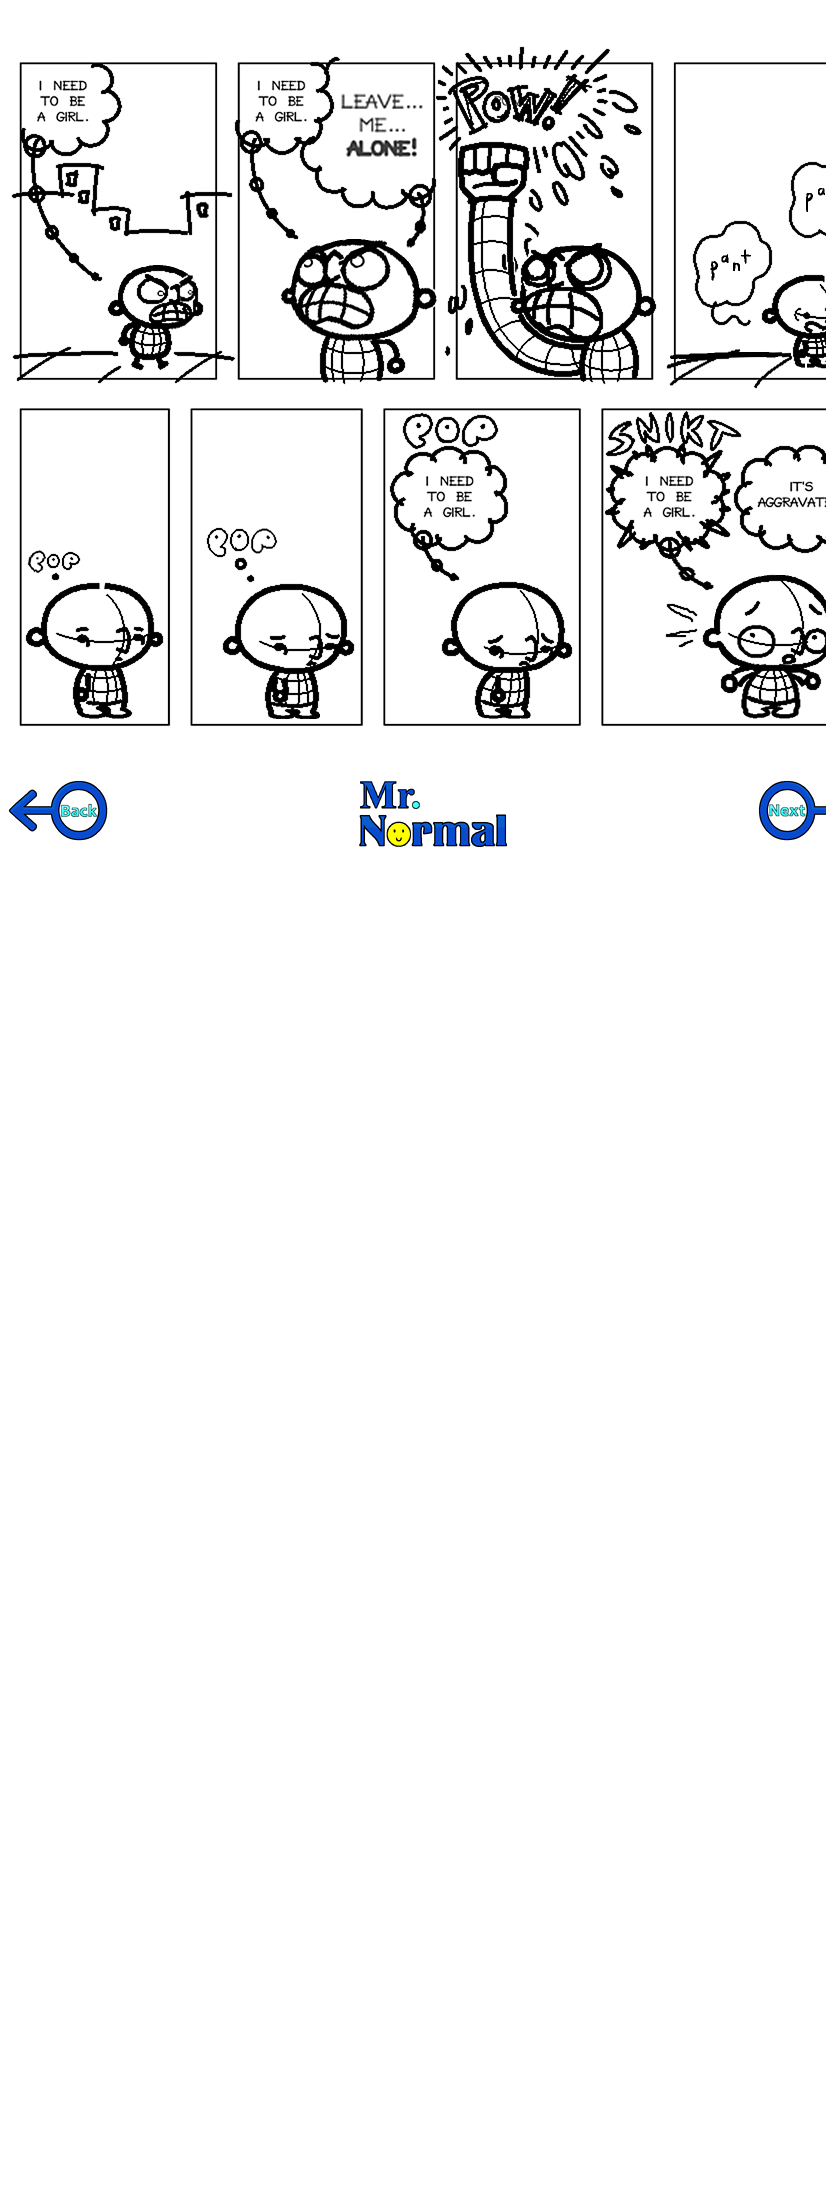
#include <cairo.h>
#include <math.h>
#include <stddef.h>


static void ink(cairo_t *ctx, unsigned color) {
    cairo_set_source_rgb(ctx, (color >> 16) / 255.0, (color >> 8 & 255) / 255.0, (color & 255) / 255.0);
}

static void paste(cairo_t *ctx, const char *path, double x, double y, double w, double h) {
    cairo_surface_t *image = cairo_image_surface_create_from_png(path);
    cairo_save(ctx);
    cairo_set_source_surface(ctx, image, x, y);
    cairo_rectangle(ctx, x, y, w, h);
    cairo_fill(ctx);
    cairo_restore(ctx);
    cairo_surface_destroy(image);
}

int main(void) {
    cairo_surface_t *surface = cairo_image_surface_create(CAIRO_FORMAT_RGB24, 826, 2193);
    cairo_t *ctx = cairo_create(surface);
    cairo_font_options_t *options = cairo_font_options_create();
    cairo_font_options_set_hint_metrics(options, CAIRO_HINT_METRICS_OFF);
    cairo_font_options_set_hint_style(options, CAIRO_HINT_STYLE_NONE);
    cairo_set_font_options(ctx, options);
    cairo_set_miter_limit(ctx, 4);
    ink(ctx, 0xFFFFFF);
    cairo_paint(ctx);
    paste(ctx, "media/1.png", 11, 46, 815, 681);
    paste(ctx, "media/2.png", 8, 780, 100, 61);
    paste(ctx, "media/3.png", 359, 781, 149, 67);
    paste(ctx, "media/4.png", 758, 780, 68, 61);
    cairo_surface_write_to_png(surface, "image.png");
    cairo_font_options_destroy(options);
    cairo_destroy(ctx);
    cairo_surface_destroy(surface);
    return 0;
}
